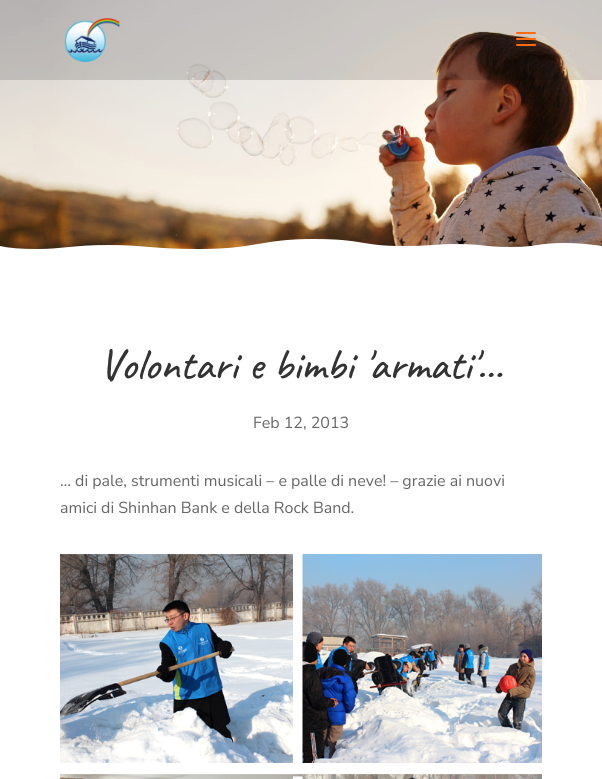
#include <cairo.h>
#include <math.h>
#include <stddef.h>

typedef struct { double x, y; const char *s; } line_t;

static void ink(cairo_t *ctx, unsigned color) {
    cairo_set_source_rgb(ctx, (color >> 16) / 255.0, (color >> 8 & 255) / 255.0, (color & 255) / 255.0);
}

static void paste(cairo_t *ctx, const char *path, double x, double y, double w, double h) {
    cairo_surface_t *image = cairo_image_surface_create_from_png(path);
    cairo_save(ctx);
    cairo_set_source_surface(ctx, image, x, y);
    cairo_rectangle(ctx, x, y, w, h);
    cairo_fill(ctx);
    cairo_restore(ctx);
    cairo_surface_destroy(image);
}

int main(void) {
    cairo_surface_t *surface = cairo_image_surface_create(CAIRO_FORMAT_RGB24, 602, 779);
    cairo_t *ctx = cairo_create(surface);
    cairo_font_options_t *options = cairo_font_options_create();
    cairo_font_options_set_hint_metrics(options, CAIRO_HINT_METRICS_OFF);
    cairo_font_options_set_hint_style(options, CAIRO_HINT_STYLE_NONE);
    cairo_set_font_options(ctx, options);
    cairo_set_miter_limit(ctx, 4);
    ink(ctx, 0xFFFFFF);
    cairo_paint(ctx);
    paste(ctx, "media/3.png", 0, 0, 602, 249);
    cairo_set_source_rgba(ctx, 0, 0, 0, 0.14);
    cairo_rectangle(ctx, 0, 0, 602, 80);
    cairo_fill(ctx);
    paste(ctx, "media/1.png", 64, 18, 56, 44);
    paste(ctx, "media/2.png", 516, 32, 20, 14);
    ink(ctx, 0xFFFFFF);
    cairo_new_path(ctx);
    cairo_move_to(ctx, 602, 246);
    cairo_curve_to(ctx, 593, 245, 583, 243, 564, 243);
    cairo_curve_to(ctx, 537, 243, 538, 247, 510, 247);
    cairo_curve_to(ctx, 485, 247, 482, 244, 456, 244);
    cairo_curve_to(ctx, 434, 244, 435, 246, 402, 246);
    cairo_curve_to(ctx, 360, 246, 365, 239, 313, 239);
    cairo_curve_to(ctx, 261, 239, 256, 249, 199, 249);
    cairo_curve_to(ctx, 152, 249, 144, 245, 109, 245);
    cairo_curve_to(ctx, 73, 245, 62, 249, 38, 249);
    cairo_curve_to(ctx, 19, 249, 9, 248, 0, 246);
    cairo_line_to(ctx, 0, 251);
    cairo_line_to(ctx, 602, 251);
    cairo_close_path(ctx);
    cairo_fill(ctx);
    cairo_select_font_face(ctx, "Caveat Medium", CAIRO_FONT_SLANT_NORMAL, CAIRO_FONT_WEIGHT_NORMAL);
    cairo_set_font_size(ctx, 44);
    ink(ctx, 0x333333);
    cairo_move_to(ctx, 99, 379);
    cairo_show_text(ctx, "Volontari e bimbi 'armati'…");
    cairo_select_font_face(ctx, "Nunito Sans", CAIRO_FONT_SLANT_NORMAL, CAIRO_FONT_WEIGHT_NORMAL);
    cairo_set_font_size(ctx, 16);
    ink(ctx, 0x666666);
    {
        static const line_t items[] = {
            {253, 428, "Feb 12, 2013"},
            {60, 486, "… di pale, strumenti musicali – e palle di neve! – grazie ai nuovi"},
            {60, 513, "amici di Shinhan Bank e della Rock Band."},
        };
        for (size_t i = 0; i < sizeof items / sizeof *items; i++) {
            cairo_move_to(ctx, items[i].x, items[i].y);
            cairo_show_text(ctx, items[i].s);
        }
    }
    paste(ctx, "media/4.png", 60, 554, 482, 225);
    cairo_surface_write_to_png(surface, "image.png");
    cairo_font_options_destroy(options);
    cairo_destroy(ctx);
    cairo_surface_destroy(surface);
    return 0;
}
